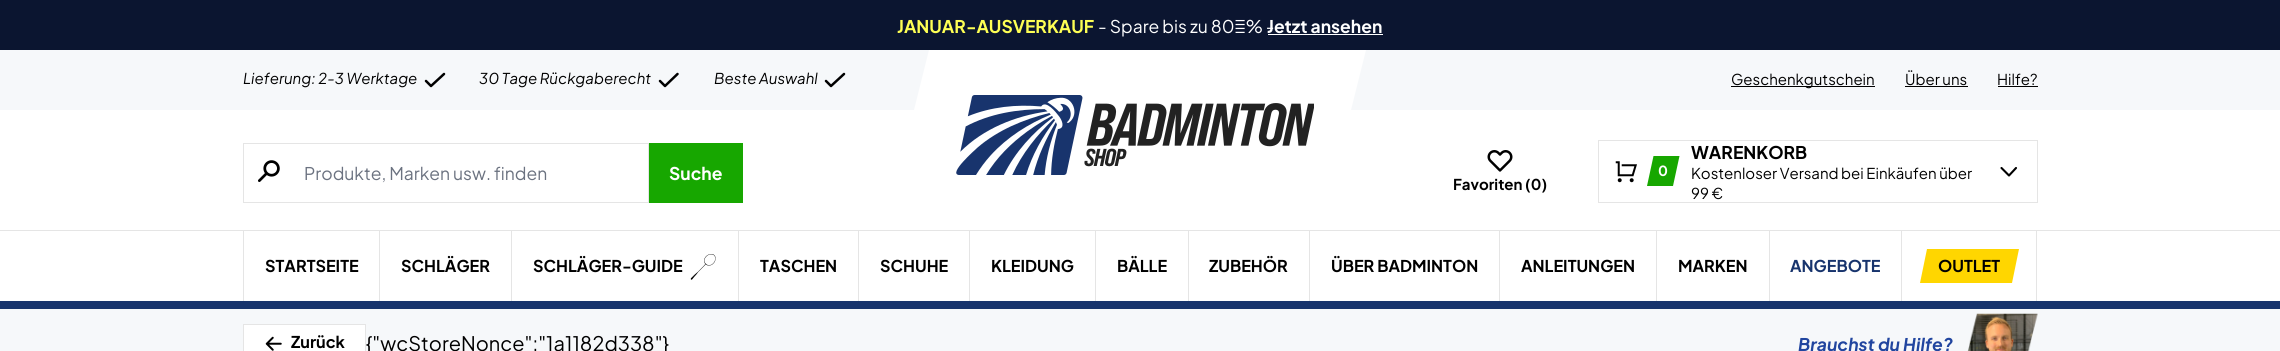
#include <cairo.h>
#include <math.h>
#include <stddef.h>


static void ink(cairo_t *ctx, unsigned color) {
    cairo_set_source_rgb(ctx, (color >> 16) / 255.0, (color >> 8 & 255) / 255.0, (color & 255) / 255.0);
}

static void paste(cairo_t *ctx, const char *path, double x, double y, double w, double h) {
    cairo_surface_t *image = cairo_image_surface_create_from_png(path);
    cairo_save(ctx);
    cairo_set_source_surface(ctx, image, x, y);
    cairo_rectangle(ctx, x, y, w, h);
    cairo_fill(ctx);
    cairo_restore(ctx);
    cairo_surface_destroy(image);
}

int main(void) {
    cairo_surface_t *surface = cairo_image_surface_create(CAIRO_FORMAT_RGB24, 2280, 351);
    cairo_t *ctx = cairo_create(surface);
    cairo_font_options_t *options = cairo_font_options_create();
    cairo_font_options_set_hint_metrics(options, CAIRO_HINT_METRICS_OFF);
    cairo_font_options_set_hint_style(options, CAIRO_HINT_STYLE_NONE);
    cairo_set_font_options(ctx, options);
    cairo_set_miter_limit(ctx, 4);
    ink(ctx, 0xFFFFFF);
    cairo_paint(ctx);
    ink(ctx, 0x0B1530);
    cairo_rectangle(ctx, 0, 0, 2280, 50);
    cairo_fill(ctx);
    cairo_select_font_face(ctx, "Plus Jakarta Sans", CAIRO_FONT_SLANT_NORMAL, CAIRO_FONT_WEIGHT_BOLD);
    cairo_set_font_size(ctx, 17.5);
    ink(ctx, 0xFEFF54);
    cairo_move_to(ctx, 897, 33);
    cairo_show_text(ctx, "JANUAR-AUSVERKAUF");
    cairo_select_font_face(ctx, "Plus Jakarta Sans", CAIRO_FONT_SLANT_NORMAL, CAIRO_FONT_WEIGHT_NORMAL);
    ink(ctx, 0xFFFFFF);
    cairo_move_to(ctx, 1098, 33);
    cairo_show_text(ctx, "- Spare bis zu 80 % -");
    cairo_select_font_face(ctx, "Plus Jakarta Sans", CAIRO_FONT_SLANT_NORMAL, CAIRO_FONT_WEIGHT_BOLD);
    cairo_move_to(ctx, 1267, 33);
    cairo_show_text(ctx, "Jetzt ansehen");
    cairo_rectangle(ctx, 1268, 34, 115, 1);
    cairo_fill(ctx);
    ink(ctx, 0xF6F8FA);
    cairo_rectangle(ctx, 0, 50, 2280, 60);
    cairo_fill(ctx);
    cairo_select_font_face(ctx, "Plus Jakarta Sans", CAIRO_FONT_SLANT_ITALIC, CAIRO_FONT_WEIGHT_NORMAL);
    cairo_set_font_size(ctx, 15);
    ink(ctx, 0x000000);
    cairo_move_to(ctx, 243, 84);
    cairo_show_text(ctx, "Lieferung: 2-3 Werktage");
    cairo_new_path(ctx);
    cairo_move_to(ctx, 426, 81);
    cairo_line_to(ctx, 431, 86);
    cairo_line_to(ctx, 444, 74);
    cairo_set_line_width(ctx, 2.5);
    cairo_set_line_cap(ctx, CAIRO_LINE_CAP_ROUND);
    cairo_set_line_join(ctx, CAIRO_LINE_JOIN_ROUND);
    cairo_stroke(ctx);
    cairo_move_to(ctx, 479, 84);
    cairo_show_text(ctx, "30 Tage Rückgaberecht");
    cairo_new_path(ctx);
    cairo_move_to(ctx, 660, 81);
    cairo_line_to(ctx, 665, 86);
    cairo_line_to(ctx, 677.5, 74);
    cairo_stroke(ctx);
    cairo_move_to(ctx, 714, 84);
    cairo_show_text(ctx, "Beste Auswahl");
    cairo_new_path(ctx);
    cairo_move_to(ctx, 826, 81);
    cairo_line_to(ctx, 831, 86);
    cairo_line_to(ctx, 844, 74);
    cairo_stroke(ctx);
    ink(ctx, 0xFFFFFF);
    cairo_rectangle(ctx, 914, 50, 452, 60);
    cairo_fill(ctx);
    ink(ctx, 0xF6F8FA);
    cairo_new_path(ctx);
    cairo_move_to(ctx, 894, 50);
    cairo_line_to(ctx, 929, 50);
    cairo_line_to(ctx, 914, 110);
    cairo_line_to(ctx, 879, 110);
    cairo_close_path(ctx);
    cairo_fill(ctx);
    cairo_new_path(ctx);
    cairo_move_to(ctx, 1366, 50);
    cairo_line_to(ctx, 1401, 50);
    cairo_line_to(ctx, 1386, 110);
    cairo_line_to(ctx, 1351, 110);
    cairo_close_path(ctx);
    cairo_fill(ctx);
    paste(ctx, "media/1.png", 956, 95, 358, 80);
    ink(ctx, 0x000000);
    cairo_rectangle(ctx, 1731, 86, 144, 1);
    cairo_fill(ctx);
    cairo_select_font_face(ctx, "Plus Jakarta Sans", CAIRO_FONT_SLANT_NORMAL, CAIRO_FONT_WEIGHT_NORMAL);
    cairo_move_to(ctx, 1731, 85);
    cairo_show_text(ctx, "Geschenkgutschein");
    cairo_move_to(ctx, 1905, 85);
    cairo_show_text(ctx, "Über uns");
    cairo_rectangle(ctx, 1905, 86, 63, 1);
    cairo_fill(ctx);
    cairo_move_to(ctx, 1997, 85);
    cairo_show_text(ctx, "Hilfe?");
    cairo_rectangle(ctx, 1998, 86, 40, 1);
    cairo_fill(ctx);
    cairo_rectangle(ctx, 243.5, 143.5, 405, 59);
    ink(ctx, 0xE5E5E5);
    cairo_set_line_width(ctx, 1);
    cairo_set_line_cap(ctx, CAIRO_LINE_CAP_BUTT);
    cairo_set_line_join(ctx, CAIRO_LINE_JOIN_MITER);
    cairo_stroke(ctx);
    paste(ctx, "media/2.png", 258, 160, 22, 22);
    cairo_set_font_size(ctx, 17.5);
    ink(ctx, 0x6B7280);
    cairo_move_to(ctx, 304, 180);
    cairo_show_text(ctx, "Produkte, Marken usw. finden");
    ink(ctx, 0x17A700);
    cairo_rectangle(ctx, 649, 143, 94, 60);
    cairo_fill(ctx);
    cairo_select_font_face(ctx, "Plus Jakarta Sans", CAIRO_FONT_SLANT_NORMAL, CAIRO_FONT_WEIGHT_BOLD);
    ink(ctx, 0xFFFFFF);
    cairo_move_to(ctx, 669, 180);
    cairo_show_text(ctx, "Suche");
    paste(ctx, "media/3.png", 1487, 150, 26, 22);
    cairo_set_font_size(ctx, 15);
    ink(ctx, 0x000000);
    cairo_move_to(ctx, 1453, 190);
    cairo_show_text(ctx, "Favoriten (0)");
    cairo_rectangle(ctx, 1598.5, 140.5, 439, 62);
    ink(ctx, 0xE5E5E5);
    cairo_stroke(ctx);
    paste(ctx, "media/4.png", 1615, 161, 22, 22);
    ink(ctx, 0x17A700);
    cairo_new_path(ctx);
    cairo_move_to(ctx, 1653.5, 156);
    cairo_line_to(ctx, 1679.5, 156);
    cairo_line_to(ctx, 1673, 186);
    cairo_line_to(ctx, 1647, 186);
    cairo_close_path(ctx);
    cairo_fill(ctx);
    cairo_set_font_size(ctx, 14);
    ink(ctx, 0xFFFFFF);
    cairo_move_to(ctx, 1658, 176);
    cairo_show_text(ctx, "0");
    cairo_set_font_size(ctx, 17.5);
    ink(ctx, 0x000000);
    cairo_move_to(ctx, 1691, 159);
    cairo_show_text(ctx, "WARENKORB");
    cairo_select_font_face(ctx, "Plus Jakarta Sans", CAIRO_FONT_SLANT_NORMAL, CAIRO_FONT_WEIGHT_NORMAL);
    cairo_set_font_size(ctx, 15);
    cairo_move_to(ctx, 1691, 179);
    cairo_show_text(ctx, "Kostenloser Versand bei Einkäufen über");
    cairo_move_to(ctx, 1691, 199);
    cairo_show_text(ctx, "99 €");
    cairo_new_path(ctx);
    cairo_move_to(ctx, 2016, 168);
    cairo_line_to(ctx, 2009, 175.5);
    cairo_line_to(ctx, 2001.5, 168);
    cairo_set_line_width(ctx, 2.1);
    cairo_set_line_cap(ctx, CAIRO_LINE_CAP_ROUND);
    cairo_set_line_join(ctx, CAIRO_LINE_JOIN_ROUND);
    cairo_stroke(ctx);
    ink(ctx, 0xE5E5E5);
    cairo_rectangle(ctx, 0, 230, 2280, 1);
    cairo_fill(ctx);
    cairo_rectangle(ctx, 243, 231, 1, 70);
    cairo_fill(ctx);
    cairo_select_font_face(ctx, "Plus Jakarta Sans", CAIRO_FONT_SLANT_NORMAL, CAIRO_FONT_WEIGHT_BOLD);
    cairo_set_font_size(ctx, 16.25);
    ink(ctx, 0x000000);
    cairo_move_to(ctx, 265, 272);
    cairo_show_text(ctx, "STARTSEITE");
    ink(ctx, 0xE5E5E5);
    cairo_rectangle(ctx, 379, 231, 1, 70);
    cairo_fill(ctx);
    ink(ctx, 0x000000);
    cairo_move_to(ctx, 401, 272);
    cairo_show_text(ctx, "SCHLÄGER");
    ink(ctx, 0xE5E5E5);
    cairo_rectangle(ctx, 511, 231, 1, 70);
    cairo_fill(ctx);
    ink(ctx, 0x000000);
    cairo_move_to(ctx, 533, 272);
    cairo_show_text(ctx, "SCHLÄGER-GUIDE");
    paste(ctx, "media/5.png", 690, 254, 26, 26);
    ink(ctx, 0xE5E5E5);
    cairo_rectangle(ctx, 738, 231, 1, 70);
    cairo_fill(ctx);
    ink(ctx, 0x000000);
    cairo_move_to(ctx, 760, 272);
    cairo_show_text(ctx, "TASCHEN");
    ink(ctx, 0xE5E5E5);
    cairo_rectangle(ctx, 858, 231, 1, 70);
    cairo_fill(ctx);
    ink(ctx, 0x000000);
    cairo_move_to(ctx, 880, 272);
    cairo_show_text(ctx, "SCHUHE");
    ink(ctx, 0xE5E5E5);
    cairo_rectangle(ctx, 969, 231, 1, 70);
    cairo_fill(ctx);
    ink(ctx, 0x000000);
    cairo_move_to(ctx, 991, 272);
    cairo_show_text(ctx, "KLEIDUNG");
    ink(ctx, 0xE5E5E5);
    cairo_rectangle(ctx, 1095, 231, 1, 70);
    cairo_fill(ctx);
    ink(ctx, 0x000000);
    cairo_move_to(ctx, 1117, 272);
    cairo_show_text(ctx, "BÄLLE");
    ink(ctx, 0xE5E5E5);
    cairo_rectangle(ctx, 1188, 231, 1, 70);
    cairo_fill(ctx);
    ink(ctx, 0x000000);
    cairo_move_to(ctx, 1209, 272);
    cairo_show_text(ctx, "ZUBEHÖR");
    ink(ctx, 0xE5E5E5);
    cairo_rectangle(ctx, 1309, 231, 1, 70);
    cairo_fill(ctx);
    ink(ctx, 0x000000);
    cairo_move_to(ctx, 1331, 272);
    cairo_show_text(ctx, "ÜBER BADMINTON");
    ink(ctx, 0xE5E5E5);
    cairo_rectangle(ctx, 1499, 231, 1, 70);
    cairo_fill(ctx);
    ink(ctx, 0x000000);
    cairo_move_to(ctx, 1521, 272);
    cairo_show_text(ctx, "ANLEITUNGEN");
    ink(ctx, 0xE5E5E5);
    cairo_rectangle(ctx, 1656, 231, 1, 70);
    cairo_fill(ctx);
    ink(ctx, 0x000000);
    cairo_move_to(ctx, 1678, 272);
    cairo_show_text(ctx, "MARKEN");
    ink(ctx, 0xE5E5E5);
    cairo_rectangle(ctx, 1769, 231, 1, 70);
    cairo_fill(ctx);
    ink(ctx, 0x18346D);
    cairo_move_to(ctx, 1790, 272);
    cairo_show_text(ctx, "ANGEBOTE");
    ink(ctx, 0xE5E5E5);
    cairo_rectangle(ctx, 2036, 231, 1, 70);
    cairo_fill(ctx);
    cairo_rectangle(ctx, 1901, 231, 1, 70);
    cairo_fill(ctx);
    ink(ctx, 0xFFD600);
    cairo_new_path(ctx);
    cairo_move_to(ctx, 1927, 249);
    cairo_line_to(ctx, 2019, 249);
    cairo_line_to(ctx, 2012, 283);
    cairo_line_to(ctx, 1920, 283);
    cairo_close_path(ctx);
    cairo_fill(ctx);
    ink(ctx, 0x000000);
    cairo_move_to(ctx, 1938, 272);
    cairo_show_text(ctx, "OUTLET");
    ink(ctx, 0x18346D);
    cairo_rectangle(ctx, 0, 301, 2280, 8);
    cairo_fill(ctx);
    ink(ctx, 0xF6F8FA);
    cairo_rectangle(ctx, 0, 309, 2280, 42);
    cairo_fill(ctx);
    ink(ctx, 0xFFFFFF);
    cairo_rectangle(ctx, 243.5, 324.5, 122, 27);
    cairo_fill_preserve(ctx);
    ink(ctx, 0xE5E5E5);
    cairo_set_line_width(ctx, 1);
    cairo_set_line_cap(ctx, CAIRO_LINE_CAP_BUTT);
    cairo_set_line_join(ctx, CAIRO_LINE_JOIN_MITER);
    cairo_stroke(ctx);
    paste(ctx, "media/6.png", 265, 336, 17, 15);
    ink(ctx, 0x000000);
    cairo_move_to(ctx, 291, 348);
    cairo_show_text(ctx, "Zurück");
    cairo_select_font_face(ctx, "Plus Jakarta Sans", CAIRO_FONT_SLANT_NORMAL, CAIRO_FONT_WEIGHT_NORMAL);
    cairo_set_font_size(ctx, 20);
    cairo_move_to(ctx, 366, 351);
    cairo_show_text(ctx, "{\"wcStoreNonce\":\"1a1182d338\"}");
    cairo_select_font_face(ctx, "Plus Jakarta Sans", CAIRO_FONT_SLANT_ITALIC, CAIRO_FONT_WEIGHT_BOLD);
    cairo_set_font_size(ctx, 17.5);
    ink(ctx, 0x21459F);
    cairo_move_to(ctx, 1798, 351);
    cairo_show_text(ctx, "Brauchst du Hilfe?");
    paste(ctx, "media/7.png", 1967, 313, 71, 38);
    cairo_surface_write_to_png(surface, "image.png");
    cairo_font_options_destroy(options);
    cairo_destroy(ctx);
    cairo_surface_destroy(surface);
    return 0;
}
